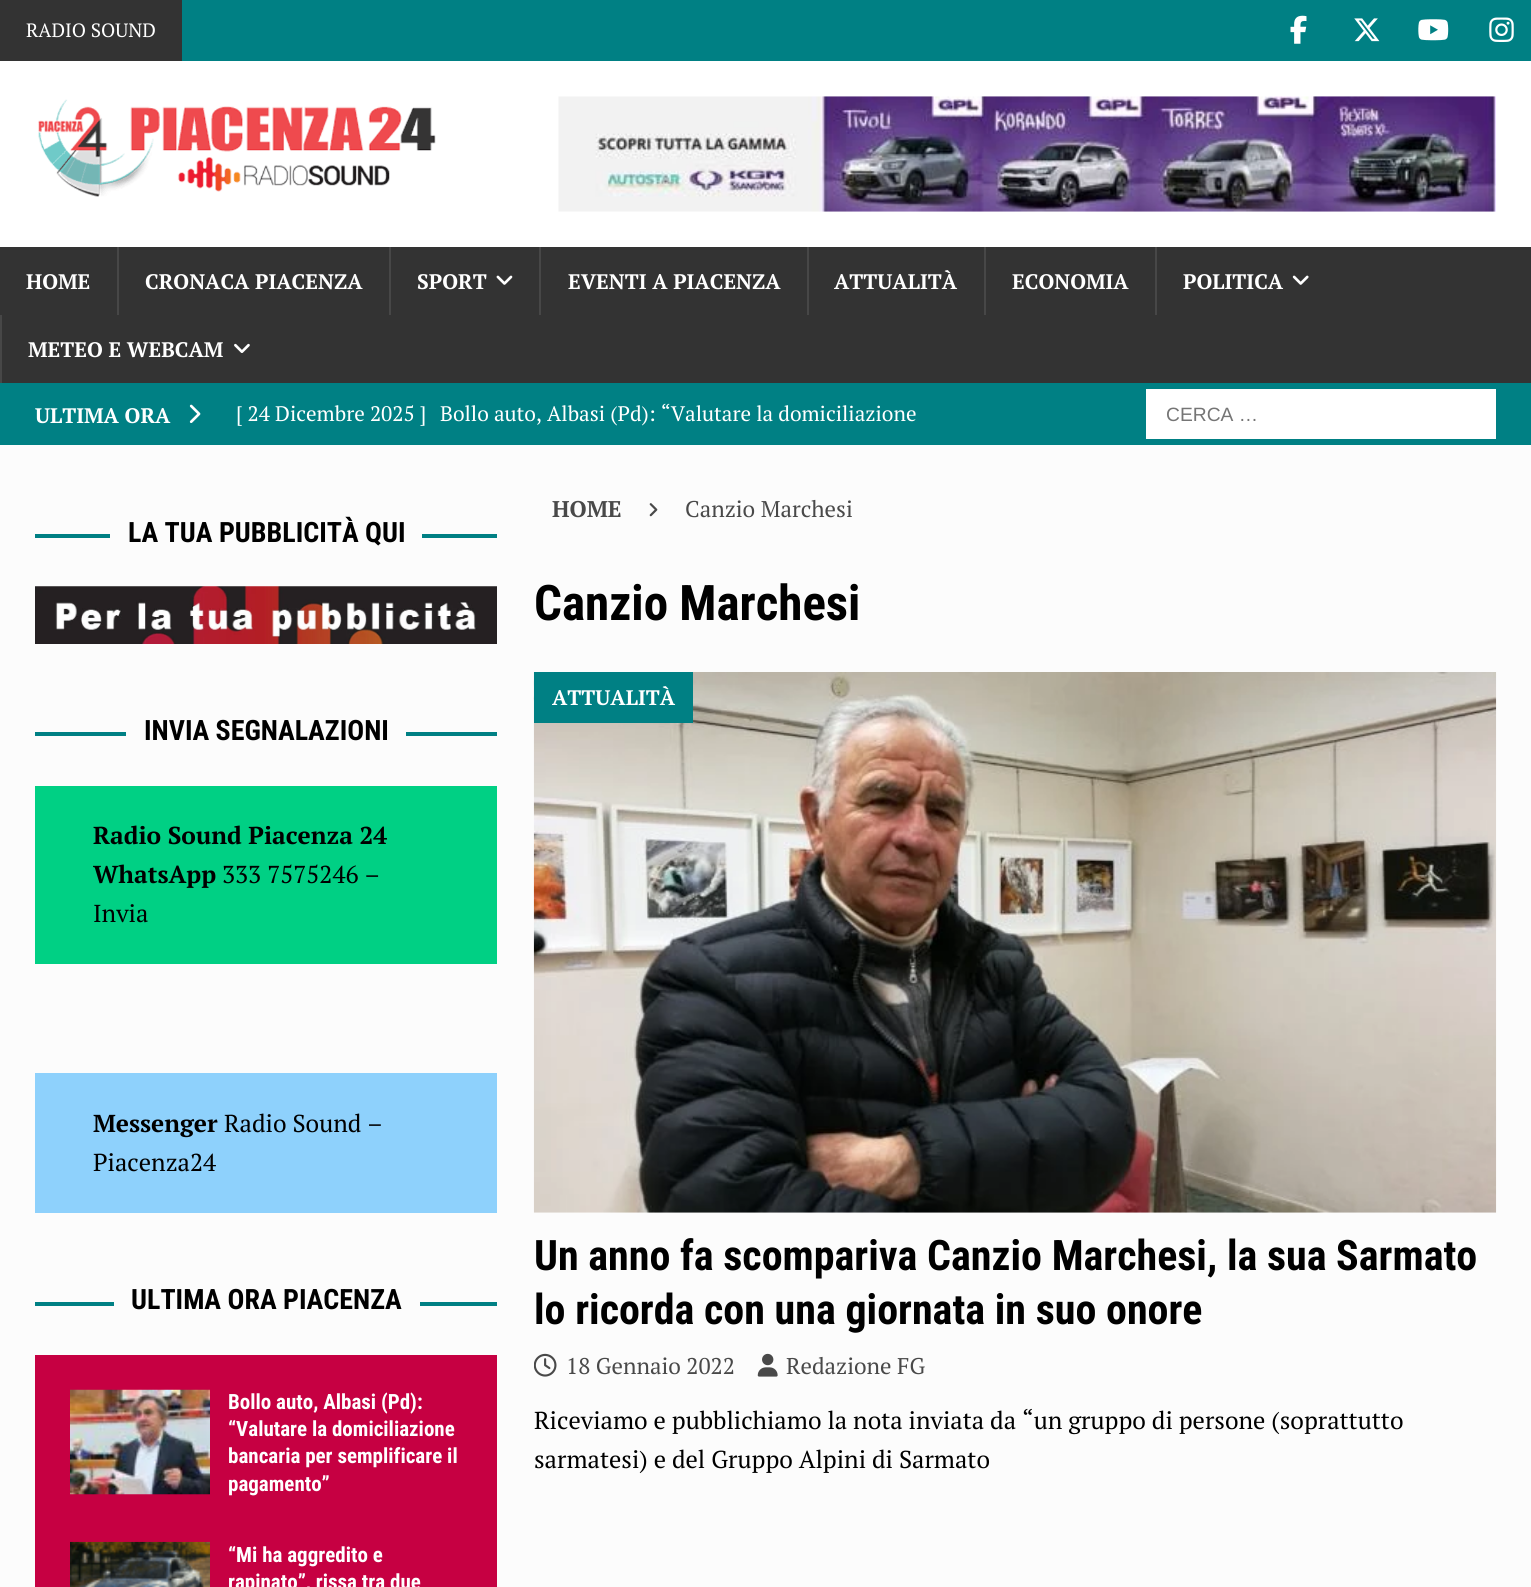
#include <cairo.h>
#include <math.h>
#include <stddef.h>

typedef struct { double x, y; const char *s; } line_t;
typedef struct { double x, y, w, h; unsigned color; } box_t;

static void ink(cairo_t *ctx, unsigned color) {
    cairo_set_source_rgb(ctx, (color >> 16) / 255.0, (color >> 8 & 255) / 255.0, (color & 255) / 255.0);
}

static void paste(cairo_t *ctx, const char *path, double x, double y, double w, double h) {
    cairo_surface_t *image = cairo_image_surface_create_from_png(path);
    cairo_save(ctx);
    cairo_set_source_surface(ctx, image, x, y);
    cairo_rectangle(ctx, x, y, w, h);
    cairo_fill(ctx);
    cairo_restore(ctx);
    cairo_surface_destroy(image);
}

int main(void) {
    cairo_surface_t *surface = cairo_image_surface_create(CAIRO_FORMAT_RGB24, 1531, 1587);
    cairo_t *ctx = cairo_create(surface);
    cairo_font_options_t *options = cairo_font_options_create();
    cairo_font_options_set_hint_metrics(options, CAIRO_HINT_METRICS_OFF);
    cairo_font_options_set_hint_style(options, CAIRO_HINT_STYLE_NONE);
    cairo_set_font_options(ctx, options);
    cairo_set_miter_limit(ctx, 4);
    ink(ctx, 0x008084);
    cairo_paint(ctx);
    ink(ctx, 0x333333);
    cairo_rectangle(ctx, 0, 0, 182, 61);
    cairo_fill(ctx);
    cairo_select_font_face(ctx, "PT Serif", CAIRO_FONT_SLANT_NORMAL, CAIRO_FONT_WEIGHT_NORMAL);
    cairo_set_font_size(ctx, 19.25);
    ink(ctx, 0xFFFFFF);
    cairo_move_to(ctx, 26, 37);
    cairo_show_text(ctx, "RADIO SOUND");
    paste(ctx, "media/1.png", 1290, 15, 17, 29);
    paste(ctx, "media/2.png", 1354, 18, 26, 24);
    paste(ctx, "media/3.png", 1418, 19, 31, 22);
    paste(ctx, "media/4.png", 1489, 17, 25, 25);
    cairo_rectangle(ctx, 0, 61, 1531, 186);
    cairo_fill(ctx);
    paste(ctx, "media/5.png", 38, 99, 398, 98);
    paste(ctx, "media/6.png", 558, 96, 938, 116);
    ink(ctx, 0x333333);
    cairo_rectangle(ctx, 0, 247, 1531, 136);
    cairo_fill(ctx);
    cairo_select_font_face(ctx, "PT Serif", CAIRO_FONT_SLANT_NORMAL, CAIRO_FONT_WEIGHT_BOLD);
    cairo_set_font_size(ctx, 21);
    ink(ctx, 0xFFFFFF);
    cairo_move_to(ctx, 26, 289);
    cairo_show_text(ctx, "HOME");
    ink(ctx, 0x474747);
    cairo_rectangle(ctx, 117, 247, 2, 68);
    cairo_fill(ctx);
    ink(ctx, 0xFFFFFF);
    cairo_move_to(ctx, 145, 289);
    cairo_show_text(ctx, "CRONACA PIACENZA");
    ink(ctx, 0x474747);
    cairo_rectangle(ctx, 389, 247, 2, 68);
    cairo_fill(ctx);
    ink(ctx, 0xFFFFFF);
    cairo_move_to(ctx, 417, 289);
    cairo_show_text(ctx, "SPORT");
    paste(ctx, "media/7.png", 496, 275, 17, 10);
    ink(ctx, 0x474747);
    cairo_rectangle(ctx, 539, 247, 2, 68);
    cairo_fill(ctx);
    ink(ctx, 0xFFFFFF);
    cairo_move_to(ctx, 568, 289);
    cairo_show_text(ctx, "EVENTI A PIACENZA");
    ink(ctx, 0x474747);
    cairo_rectangle(ctx, 807, 247, 2, 68);
    cairo_fill(ctx);
    ink(ctx, 0xFFFFFF);
    cairo_move_to(ctx, 834, 289);
    cairo_show_text(ctx, "ATTUALITÀ");
    ink(ctx, 0x474747);
    cairo_rectangle(ctx, 984, 247, 2, 68);
    cairo_fill(ctx);
    ink(ctx, 0xFFFFFF);
    cairo_move_to(ctx, 1012, 289);
    cairo_show_text(ctx, "ECONOMIA");
    ink(ctx, 0x474747);
    cairo_rectangle(ctx, 1155, 247, 2, 68);
    cairo_fill(ctx);
    ink(ctx, 0xFFFFFF);
    cairo_move_to(ctx, 1183, 289);
    cairo_show_text(ctx, "POLITICA");
    paste(ctx, "media/8.png", 1292, 275, 17, 10);
    ink(ctx, 0x474747);
    cairo_rectangle(ctx, 0, 315, 2, 68);
    cairo_fill(ctx);
    ink(ctx, 0xFFFFFF);
    cairo_move_to(ctx, 28, 357);
    cairo_show_text(ctx, "METEO E WEBCAM");
    paste(ctx, "media/9.png", 234, 343, 16, 10);
    cairo_move_to(ctx, 35, 423);
    cairo_show_text(ctx, "ULTIMA ORA");
    paste(ctx, "media/10.png", 189, 404, 12, 19);
    cairo_select_font_face(ctx, "PT Serif", CAIRO_FONT_SLANT_NORMAL, CAIRO_FONT_WEIGHT_NORMAL);
    cairo_move_to(ctx, 236, 421);
    cairo_show_text(ctx, "[ 24 Dicembre 2025 ]");
    cairo_move_to(ctx, 440, 421);
    cairo_show_text(ctx, "Bollo auto, Albasi (Pd): “Valutare la domiciliazione");
    cairo_rectangle(ctx, 1146, 389, 350, 50);
    cairo_fill(ctx);
    cairo_select_font_face(ctx, "Liberation Sans", CAIRO_FONT_SLANT_NORMAL, CAIRO_FONT_WEIGHT_NORMAL);
    cairo_set_font_size(ctx, 19.25);
    ink(ctx, 0x757575);
    cairo_move_to(ctx, 1166, 421);
    cairo_show_text(ctx, "CERCA …");
    {
        static const box_t items[] = {
            {0, 445, 1531, 1142, 0xFCFCFC},
            {35, 534, 462, 4, 0x008084},
            {110, 534, 312, 4, 0xFCFCFC},
        };
        for (size_t i = 0; i < sizeof items / sizeof *items; i++) {
            ink(ctx, items[i].color);
            cairo_rectangle(ctx, items[i].x, items[i].y, items[i].w, items[i].h);
            cairo_fill(ctx);
        }
    }
    cairo_select_font_face(ctx, "Roboto Condensed", CAIRO_FONT_SLANT_NORMAL, CAIRO_FONT_WEIGHT_BOLD);
    cairo_set_font_size(ctx, 28);
    ink(ctx, 0x000000);
    cairo_move_to(ctx, 128, 542);
    cairo_show_text(ctx, "LA TUA PUBBLICITÀ QUI");
    paste(ctx, "media/11.png", 35, 586, 462, 58);
    ink(ctx, 0x008084);
    cairo_rectangle(ctx, 35, 732, 462, 4);
    cairo_fill(ctx);
    ink(ctx, 0xFCFCFC);
    cairo_rectangle(ctx, 126, 732, 280, 4);
    cairo_fill(ctx);
    ink(ctx, 0x000000);
    cairo_move_to(ctx, 144, 740);
    cairo_show_text(ctx, "INVIA SEGNALAZIONI");
    ink(ctx, 0x00D084);
    cairo_rectangle(ctx, 35, 786, 462, 178);
    cairo_fill(ctx);
    cairo_select_font_face(ctx, "PT Serif", CAIRO_FONT_SLANT_NORMAL, CAIRO_FONT_WEIGHT_BOLD);
    cairo_set_font_size(ctx, 24.5);
    ink(ctx, 0x000000);
    cairo_move_to(ctx, 93, 844);
    cairo_show_text(ctx, "Radio Sound Piacenza 24");
    cairo_move_to(ctx, 93, 883);
    cairo_show_text(ctx, "WhatsApp");
    cairo_select_font_face(ctx, "PT Serif", CAIRO_FONT_SLANT_NORMAL, CAIRO_FONT_WEIGHT_NORMAL);
    cairo_move_to(ctx, 222, 883);
    cairo_show_text(ctx, "333 7575246 –");
    cairo_move_to(ctx, 93, 922);
    cairo_show_text(ctx, "Invia");
    ink(ctx, 0x8ED1FC);
    cairo_rectangle(ctx, 35, 1073, 462, 140);
    cairo_fill(ctx);
    cairo_select_font_face(ctx, "PT Serif", CAIRO_FONT_SLANT_NORMAL, CAIRO_FONT_WEIGHT_BOLD);
    ink(ctx, 0x000000);
    cairo_move_to(ctx, 93, 1132);
    cairo_show_text(ctx, "Messenger");
    cairo_select_font_face(ctx, "PT Serif", CAIRO_FONT_SLANT_NORMAL, CAIRO_FONT_WEIGHT_NORMAL);
    cairo_move_to(ctx, 224, 1132);
    cairo_show_text(ctx, "Radio Sound –");
    cairo_move_to(ctx, 93, 1171);
    cairo_show_text(ctx, "Piacenza24");
    ink(ctx, 0x008084);
    cairo_rectangle(ctx, 35, 1302, 462, 4);
    cairo_fill(ctx);
    ink(ctx, 0xFCFCFC);
    cairo_rectangle(ctx, 114, 1302, 306, 4);
    cairo_fill(ctx);
    cairo_select_font_face(ctx, "Roboto Condensed", CAIRO_FONT_SLANT_NORMAL, CAIRO_FONT_WEIGHT_BOLD);
    cairo_set_font_size(ctx, 28);
    ink(ctx, 0x000000);
    cairo_move_to(ctx, 131, 1309);
    cairo_show_text(ctx, "ULTIMA ORA PIACENZA");
    ink(ctx, 0xC60042);
    cairo_rectangle(ctx, 35, 1355, 462, 232);
    cairo_fill(ctx);
    paste(ctx, "media/12.png", 70, 1389, 140, 106);
    cairo_set_font_size(ctx, 21);
    ink(ctx, 0xFFFFFF);
    {
        static const line_t items[] = {
            {228, 1409, "Bollo auto, Albasi (Pd):"},
            {228, 1436, "“Valutare la domiciliazione"},
            {228, 1463, "bancaria per semplificare il"},
            {228, 1491, "pagamento”"},
        };
        for (size_t i = 0; i < sizeof items / sizeof *items; i++) {
            cairo_move_to(ctx, items[i].x, items[i].y);
            cairo_show_text(ctx, items[i].s);
        }
    }
    paste(ctx, "media/13.png", 70, 1541, 140, 46);
    cairo_move_to(ctx, 228, 1562);
    cairo_show_text(ctx, "“Mi ha aggredito e");
    cairo_move_to(ctx, 228, 1589);
    cairo_show_text(ctx, "rapinato”, rissa tra due");
    cairo_select_font_face(ctx, "PT Serif", CAIRO_FONT_SLANT_NORMAL, CAIRO_FONT_WEIGHT_BOLD);
    cairo_set_font_size(ctx, 22.75);
    ink(ctx, 0x494949);
    cairo_move_to(ctx, 552, 517);
    cairo_show_text(ctx, "HOME");
    paste(ctx, "media/14.png", 649, 503, 9, 14);
    cairo_select_font_face(ctx, "PT Serif", CAIRO_FONT_SLANT_NORMAL, CAIRO_FONT_WEIGHT_NORMAL);
    cairo_move_to(ctx, 685, 517);
    cairo_show_text(ctx, "Canzio Marchesi");
    cairo_select_font_face(ctx, "Roboto Condensed", CAIRO_FONT_SLANT_NORMAL, CAIRO_FONT_WEIGHT_BOLD);
    cairo_set_font_size(ctx, 49);
    ink(ctx, 0x000000);
    cairo_move_to(ctx, 534, 620);
    cairo_show_text(ctx, "Canzio Marchesi");
    paste(ctx, "media/15.png", 533, 672, 964, 541);
    ink(ctx, 0x008084);
    cairo_rectangle(ctx, 534, 672, 159, 51);
    cairo_fill(ctx);
    cairo_select_font_face(ctx, "PT Serif", CAIRO_FONT_SLANT_NORMAL, CAIRO_FONT_WEIGHT_BOLD);
    cairo_set_font_size(ctx, 21);
    ink(ctx, 0xFFFFFF);
    cairo_move_to(ctx, 552, 705);
    cairo_show_text(ctx, "ATTUALITÀ");
    cairo_select_font_face(ctx, "Roboto Condensed", CAIRO_FONT_SLANT_NORMAL, CAIRO_FONT_WEIGHT_BOLD);
    cairo_set_font_size(ctx, 42);
    ink(ctx, 0x000000);
    cairo_move_to(ctx, 534, 1270);
    cairo_show_text(ctx, "Un anno fa scompariva Canzio Marchesi, la sua Sarmato");
    cairo_move_to(ctx, 534, 1324);
    cairo_show_text(ctx, "lo ricorda con una giornata in suo onore");
    paste(ctx, "media/16.png", 534, 1353, 23, 24);
    cairo_select_font_face(ctx, "PT Serif", CAIRO_FONT_SLANT_NORMAL, CAIRO_FONT_WEIGHT_NORMAL);
    cairo_set_font_size(ctx, 22.75);
    ink(ctx, 0x494949);
    cairo_move_to(ctx, 566, 1374);
    cairo_show_text(ctx, "18 Gennaio 2022");
    paste(ctx, "media/17.png", 757, 1353, 21, 24);
    cairo_move_to(ctx, 786, 1374);
    cairo_show_text(ctx, "Redazione FG");
    cairo_set_font_size(ctx, 24.5);
    ink(ctx, 0x000000);
    cairo_move_to(ctx, 534, 1429);
    cairo_show_text(ctx, "Riceviamo e pubblichiamo la nota inviata da “un gruppo di persone (soprattutto");
    cairo_move_to(ctx, 534, 1468);
    cairo_show_text(ctx, "sarmatesi) e del Gruppo Alpini di Sarmato");
    cairo_surface_write_to_png(surface, "image.png");
    cairo_font_options_destroy(options);
    cairo_destroy(ctx);
    cairo_surface_destroy(surface);
    return 0;
}
